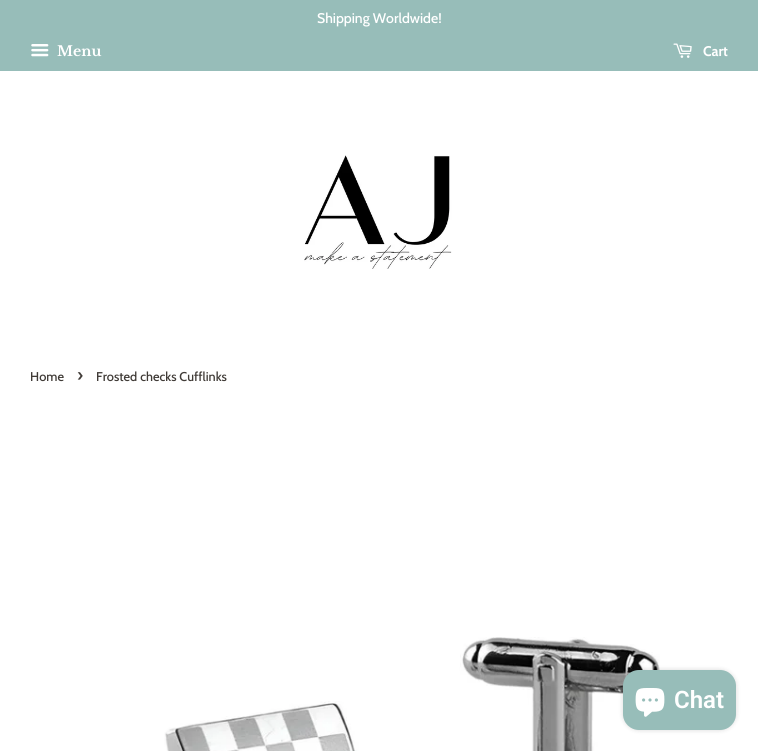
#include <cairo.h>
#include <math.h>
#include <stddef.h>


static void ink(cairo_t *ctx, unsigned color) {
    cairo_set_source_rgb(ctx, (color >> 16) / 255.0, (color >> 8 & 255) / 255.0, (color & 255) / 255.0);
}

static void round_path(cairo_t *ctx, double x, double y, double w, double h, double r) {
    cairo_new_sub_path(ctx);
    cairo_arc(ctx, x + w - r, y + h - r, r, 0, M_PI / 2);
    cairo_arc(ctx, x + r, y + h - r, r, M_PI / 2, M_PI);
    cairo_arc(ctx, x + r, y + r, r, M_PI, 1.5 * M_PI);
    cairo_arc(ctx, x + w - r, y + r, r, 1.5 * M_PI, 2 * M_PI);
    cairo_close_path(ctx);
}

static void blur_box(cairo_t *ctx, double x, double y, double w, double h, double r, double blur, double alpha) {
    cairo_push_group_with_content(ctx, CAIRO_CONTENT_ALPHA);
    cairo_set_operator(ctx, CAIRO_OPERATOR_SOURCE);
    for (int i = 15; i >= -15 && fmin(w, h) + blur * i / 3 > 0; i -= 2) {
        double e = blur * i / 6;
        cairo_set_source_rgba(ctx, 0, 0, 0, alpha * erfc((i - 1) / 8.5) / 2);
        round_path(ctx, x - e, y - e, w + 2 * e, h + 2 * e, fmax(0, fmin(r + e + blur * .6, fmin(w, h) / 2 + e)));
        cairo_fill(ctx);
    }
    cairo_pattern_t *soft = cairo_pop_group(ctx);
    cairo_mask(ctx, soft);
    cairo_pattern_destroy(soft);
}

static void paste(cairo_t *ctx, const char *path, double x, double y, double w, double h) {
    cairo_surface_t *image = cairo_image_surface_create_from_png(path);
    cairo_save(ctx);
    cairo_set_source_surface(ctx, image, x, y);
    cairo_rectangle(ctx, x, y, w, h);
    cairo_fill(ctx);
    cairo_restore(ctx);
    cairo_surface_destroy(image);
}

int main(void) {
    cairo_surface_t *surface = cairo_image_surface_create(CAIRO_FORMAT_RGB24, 758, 751);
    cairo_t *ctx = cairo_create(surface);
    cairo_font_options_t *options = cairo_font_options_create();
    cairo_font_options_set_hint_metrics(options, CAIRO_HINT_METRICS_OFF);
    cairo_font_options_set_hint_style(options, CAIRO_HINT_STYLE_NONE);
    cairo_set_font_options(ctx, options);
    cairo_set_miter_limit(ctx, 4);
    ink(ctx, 0xFFFFFF);
    cairo_paint(ctx);
    ink(ctx, 0x97BDB9);
    cairo_rectangle(ctx, 0, 0, 758, 71);
    cairo_fill(ctx);
    cairo_select_font_face(ctx, "Cabin Medium", CAIRO_FONT_SLANT_NORMAL, CAIRO_FONT_WEIGHT_NORMAL);
    cairo_set_font_size(ctx, 14);
    ink(ctx, 0xFFFFFF);
    cairo_move_to(ctx, 317, 23);
    cairo_show_text(ctx, "Shipping Worldwide!");
    paste(ctx, "media/1.png", 31, 44, 18, 13);
    cairo_select_font_face(ctx, "Libre Baskerville", CAIRO_FONT_SLANT_NORMAL, CAIRO_FONT_WEIGHT_BOLD);
    cairo_move_to(ctx, 57, 56);
    cairo_show_text(ctx, "Menu");
    paste(ctx, "media/2.png", 673, 43, 19, 15);
    cairo_select_font_face(ctx, "Cabin", CAIRO_FONT_SLANT_NORMAL, CAIRO_FONT_WEIGHT_BOLD);
    cairo_move_to(ctx, 703, 56);
    cairo_show_text(ctx, "Cart");
    paste(ctx, "media/3.png", 304, 155, 148, 114);
    cairo_select_font_face(ctx, "Cabin Medium", CAIRO_FONT_SLANT_NORMAL, CAIRO_FONT_WEIGHT_NORMAL);
    cairo_set_font_size(ctx, 12.75);
    ink(ctx, 0x403B37);
    cairo_move_to(ctx, 30, 381);
    cairo_show_text(ctx, "Home");
    cairo_set_font_size(ctx, 18);
    cairo_move_to(ctx, 77, 381);
    cairo_show_text(ctx, "›");
    cairo_set_font_size(ctx, 12.75);
    cairo_move_to(ctx, 96, 381);
    cairo_show_text(ctx, "Frosted checks Cufflinks");
    paste(ctx, "media/4.png", 164, 637, 496, 114);
    ink(ctx, 0x000000);
    blur_box(ctx, 623, 670, 113, 60, 16, 2.5, 0.15);
    ink(ctx, 0x97BDB9);
    round_path(ctx, 623, 670, 113, 60, 16);
    cairo_fill(ctx);
    paste(ctx, "media/5.png", 635, 688, 30, 29);
    cairo_select_font_face(ctx, "Roboto SemiBold", CAIRO_FONT_SLANT_NORMAL, CAIRO_FONT_WEIGHT_NORMAL);
    cairo_set_font_size(ctx, 24);
    ink(ctx, 0xFFFFFF);
    cairo_move_to(ctx, 674, 708);
    cairo_show_text(ctx, "Chat");
    cairo_surface_write_to_png(surface, "image.png");
    cairo_font_options_destroy(options);
    cairo_destroy(ctx);
    cairo_surface_destroy(surface);
    return 0;
}
